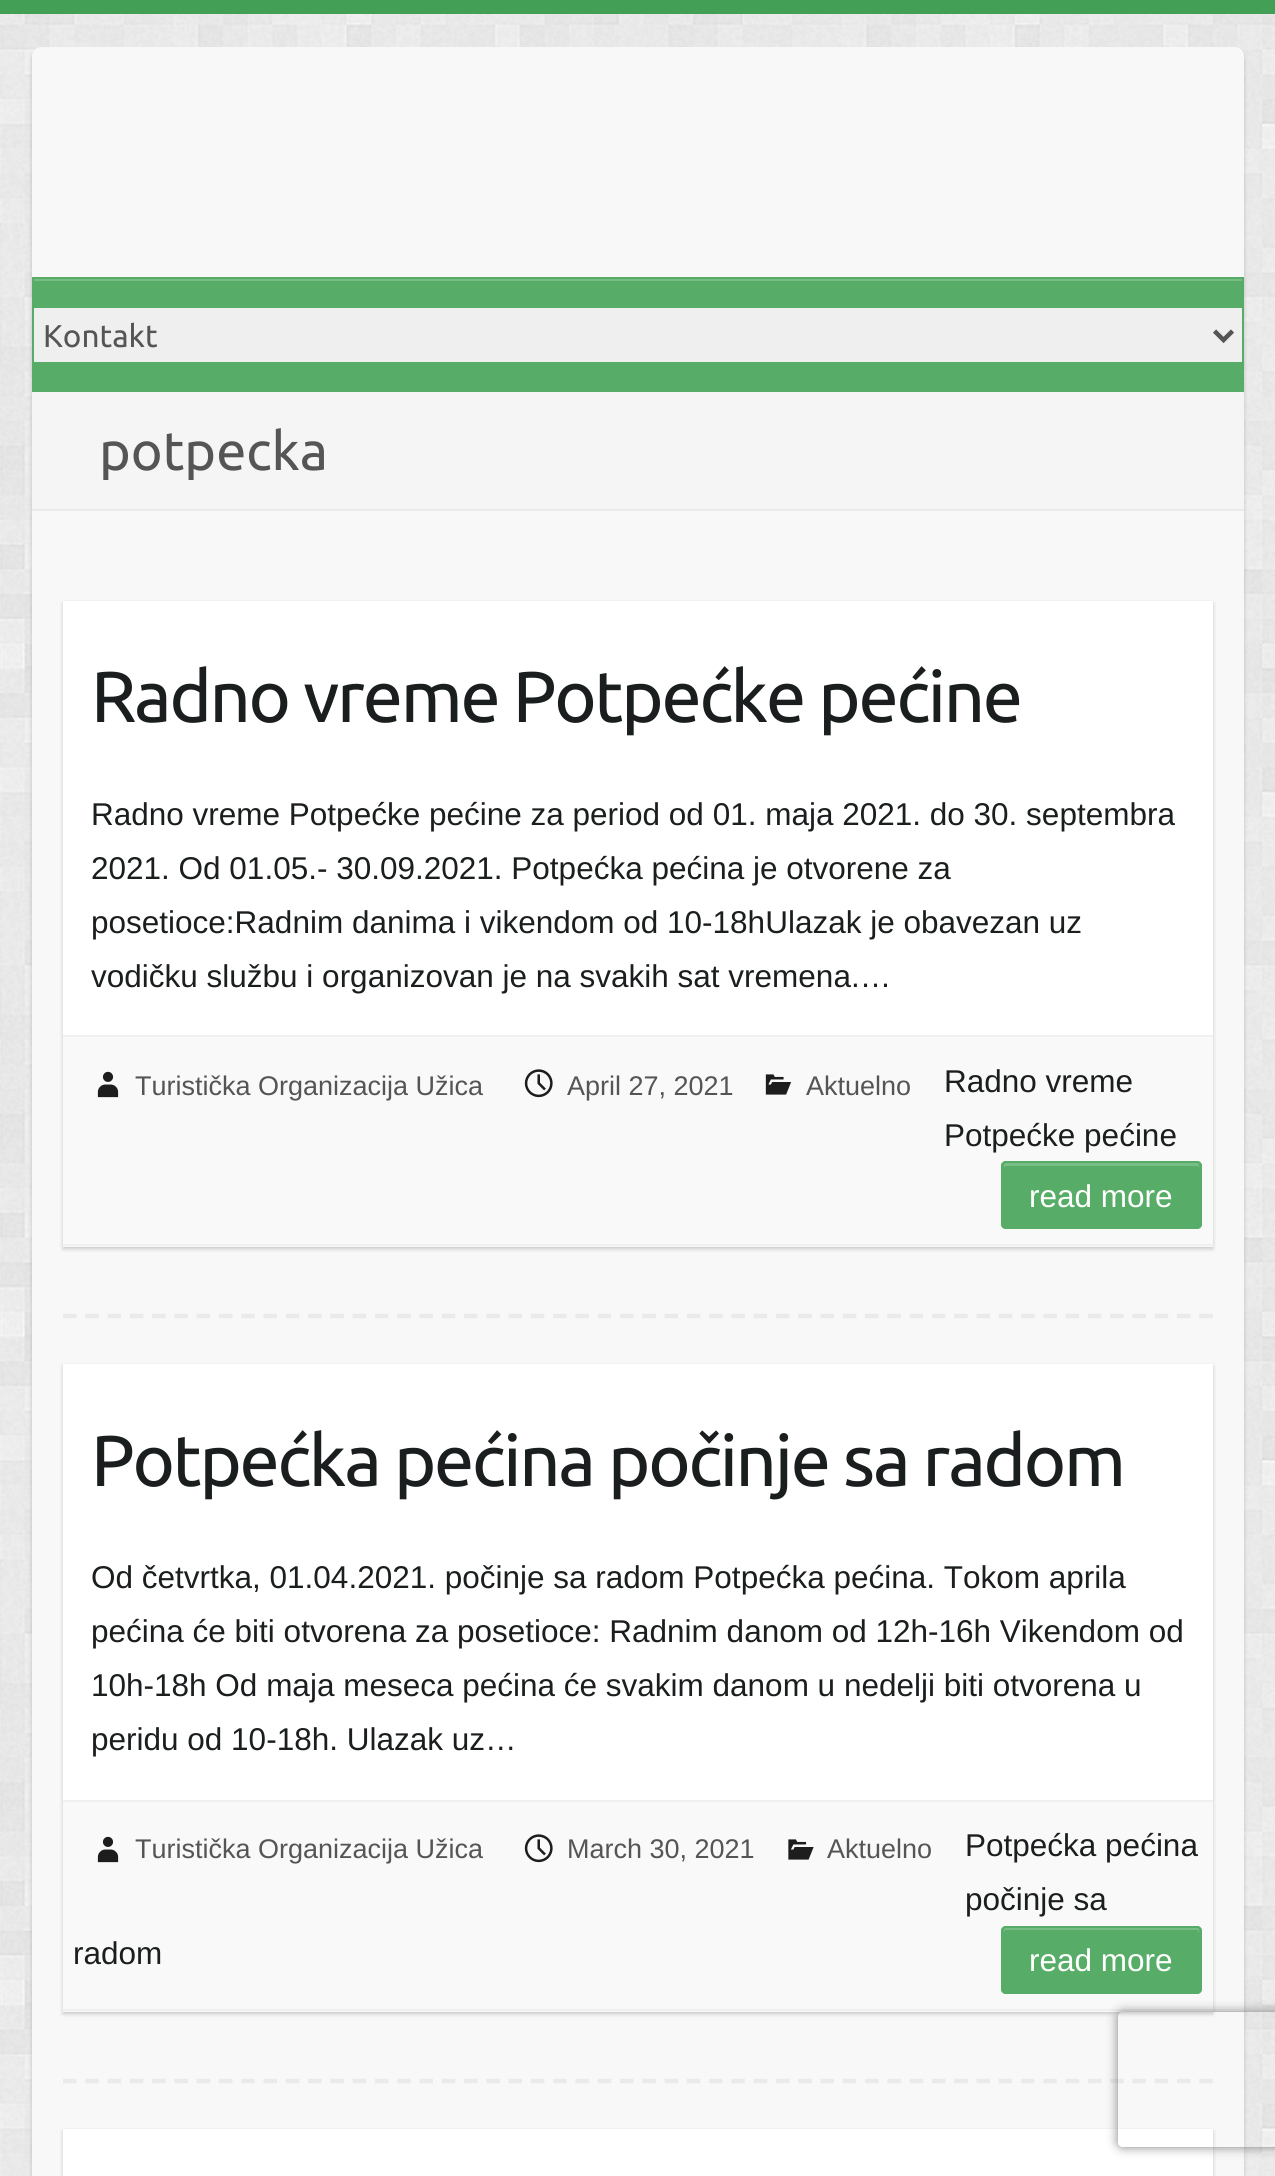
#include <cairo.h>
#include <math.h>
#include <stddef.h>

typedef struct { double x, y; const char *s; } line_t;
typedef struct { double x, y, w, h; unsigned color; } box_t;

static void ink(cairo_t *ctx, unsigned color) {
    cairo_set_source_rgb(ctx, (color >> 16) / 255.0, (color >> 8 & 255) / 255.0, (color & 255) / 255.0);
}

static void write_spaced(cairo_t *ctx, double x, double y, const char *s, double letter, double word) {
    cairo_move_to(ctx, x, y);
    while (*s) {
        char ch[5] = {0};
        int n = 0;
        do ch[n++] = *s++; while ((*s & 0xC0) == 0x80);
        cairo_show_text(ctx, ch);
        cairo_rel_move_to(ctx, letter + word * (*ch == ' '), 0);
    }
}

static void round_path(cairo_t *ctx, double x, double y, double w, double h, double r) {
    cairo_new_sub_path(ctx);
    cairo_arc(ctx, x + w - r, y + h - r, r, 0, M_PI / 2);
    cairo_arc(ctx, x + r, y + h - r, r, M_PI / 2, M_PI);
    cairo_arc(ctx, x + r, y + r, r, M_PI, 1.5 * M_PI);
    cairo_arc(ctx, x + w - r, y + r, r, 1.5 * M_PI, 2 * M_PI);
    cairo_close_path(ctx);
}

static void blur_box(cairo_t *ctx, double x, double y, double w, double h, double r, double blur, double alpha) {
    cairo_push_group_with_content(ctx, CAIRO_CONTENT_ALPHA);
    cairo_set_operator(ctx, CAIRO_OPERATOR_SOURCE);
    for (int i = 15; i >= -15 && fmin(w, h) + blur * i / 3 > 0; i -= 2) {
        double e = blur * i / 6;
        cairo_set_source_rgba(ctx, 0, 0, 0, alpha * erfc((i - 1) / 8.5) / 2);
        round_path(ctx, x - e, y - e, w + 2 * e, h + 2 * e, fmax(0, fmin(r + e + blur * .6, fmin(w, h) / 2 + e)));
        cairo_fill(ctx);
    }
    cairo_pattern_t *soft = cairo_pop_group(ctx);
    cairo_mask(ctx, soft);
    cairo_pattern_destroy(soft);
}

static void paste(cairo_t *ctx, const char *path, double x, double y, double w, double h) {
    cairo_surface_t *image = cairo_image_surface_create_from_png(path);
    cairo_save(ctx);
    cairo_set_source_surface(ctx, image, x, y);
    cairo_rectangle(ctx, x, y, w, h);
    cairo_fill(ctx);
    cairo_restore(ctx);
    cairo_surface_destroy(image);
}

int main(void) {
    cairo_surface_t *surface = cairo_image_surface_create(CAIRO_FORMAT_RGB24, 1275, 2176);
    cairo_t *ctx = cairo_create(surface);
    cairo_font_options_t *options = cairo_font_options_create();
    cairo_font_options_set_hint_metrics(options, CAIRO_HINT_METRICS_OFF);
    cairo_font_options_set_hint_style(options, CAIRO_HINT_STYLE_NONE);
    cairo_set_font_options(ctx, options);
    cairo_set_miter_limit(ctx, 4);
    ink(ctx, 0xFFFFFF);
    cairo_paint(ctx);
    paste(ctx, "media/1.png", 0, 14, 1275, 2162);
    ink(ctx, 0x439F55);
    cairo_rectangle(ctx, 0, 0, 1275, 14);
    cairo_fill(ctx);
    ink(ctx, 0x000000);
    blur_box(ctx, 32, 50, 1212, 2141, 9, 2, 0.2);
    ink(ctx, 0xF8F8F8);
    round_path(ctx, 32, 47, 1212, 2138, 9);
    cairo_fill(ctx);
    {
        static const box_t items[] = {
            {32, 277, 1212, 115, 0x57AD68},
            {34, 279, 1208, 2, 0x79BD86},
            {34, 308, 1208, 54, 0xEFEFEF},
        };
        for (size_t i = 0; i < sizeof items / sizeof *items; i++) {
            ink(ctx, items[i].color);
            cairo_rectangle(ctx, items[i].x, items[i].y, items[i].w, items[i].h);
            cairo_fill(ctx);
        }
    }
    cairo_new_path(ctx);
    cairo_move_to(ctx, 1214.5, 331);
    cairo_line_to(ctx, 1223.5, 340);
    cairo_line_to(ctx, 1232.5, 331);
    ink(ctx, 0x555555);
    cairo_set_line_width(ctx, 4.5);
    cairo_stroke(ctx);
    cairo_select_font_face(ctx, "Ubuntu", CAIRO_FONT_SLANT_NORMAL, CAIRO_FONT_WEIGHT_NORMAL);
    cairo_set_font_size(ctx, 31.5);
    cairo_move_to(ctx, 43, 347);
    cairo_show_text(ctx, "Kontakt");
    ink(ctx, 0xF5F5F5);
    cairo_rectangle(ctx, 32, 392, 1212, 117);
    cairo_fill(ctx);
    ink(ctx, 0xEAEAEA);
    cairo_rectangle(ctx, 32, 509, 1212, 2);
    cairo_fill(ctx);
    cairo_set_font_size(ctx, 54);
    ink(ctx, 0x555555);
    cairo_move_to(ctx, 99, 470);
    cairo_show_text(ctx, "potpecka");
    ink(ctx, 0x000000);
    blur_box(ctx, 63, 603, 1150, 646, 0, 2, 0.2);
    ink(ctx, 0xFFFFFF);
    cairo_rectangle(ctx, 63, 601, 1150, 434);
    cairo_fill(ctx);
    cairo_set_font_size(ctx, 72);
    ink(ctx, 0x1B1E1F);
    write_spaced(ctx, 91, 722, "Radno vreme Potpećke pećine", -2.25, 0);
    cairo_select_font_face(ctx, "Liberation Sans", CAIRO_FONT_SLANT_NORMAL, CAIRO_FONT_WEIGHT_NORMAL);
    cairo_set_font_size(ctx, 31.5);
    {
        static const line_t items[] = {
            {91, 825, "Radno vreme Potpećke pećine za period od 01. maja 2021. do 30. septembra"},
            {91, 879, "2021. Od 01.05.- 30.09.2021. Potpećka pećina je otvorene za"},
            {91, 933, "posetioce:Radnim danima i vikendom od 10-18hUlazak je obavezan uz"},
            {91, 987, "vodičku službu i organizovan je na svakih sat vremena.…"},
        };
        for (size_t i = 0; i < sizeof items / sizeof *items; i++) {
            cairo_move_to(ctx, items[i].x, items[i].y);
            cairo_show_text(ctx, items[i].s);
        }
    }
    {
        static const box_t items[] = {
            {63, 1037, 1150, 210, 0xF9F9F9},
            {63, 1035, 1150, 2, 0xF0F0F0},
            {63, 1244, 1150, 2, 0xF0F0F0},
        };
        for (size_t i = 0; i < sizeof items / sizeof *items; i++) {
            ink(ctx, items[i].color);
            cairo_rectangle(ctx, items[i].x, items[i].y, items[i].w, items[i].h);
            cairo_fill(ctx);
        }
    }
    paste(ctx, "media/2.png", 97, 1071, 22, 27);
    cairo_set_font_size(ctx, 27);
    ink(ctx, 0x555555);
    cairo_move_to(ctx, 135, 1095);
    cairo_show_text(ctx, "Turistička Organizacija Užica");
    paste(ctx, "media/3.png", 524, 1069, 29, 29);
    cairo_move_to(ctx, 567, 1095);
    cairo_show_text(ctx, "April 27, 2021");
    paste(ctx, "media/4.png", 765, 1074, 27, 21);
    cairo_move_to(ctx, 806, 1095);
    cairo_show_text(ctx, "Aktuelno");
    cairo_set_font_size(ctx, 31.5);
    ink(ctx, 0x1B1E1F);
    cairo_move_to(ctx, 944, 1092);
    cairo_show_text(ctx, "Radno vreme");
    cairo_move_to(ctx, 944, 1146);
    cairo_show_text(ctx, "Potpećke pećine");
    ink(ctx, 0x57AD68);
    round_path(ctx, 1001, 1161, 201, 68, 5);
    cairo_fill(ctx);
    ink(ctx, 0x79BD86);
    cairo_new_path(ctx);
    cairo_move_to(ctx, 1006, 1166);
    cairo_line_to(ctx, 1197, 1166);
    cairo_line_to(ctx, 1199, 1167);
    cairo_line_to(ctx, 1199, 1168);
    cairo_curve_to(ctx, 1199, 1167, 1200, 1164, 1198, 1163);
    cairo_line_to(ctx, 1006, 1163);
    cairo_curve_to(ctx, 1003, 1163, 1004, 1166, 1004, 1168);
    cairo_curve_to(ctx, 1004, 1167, 1005, 1166, 1006, 1166);
    cairo_close_path(ctx);
    cairo_fill(ctx);
    round_path(ctx, 1002, 1162, 199, 66, 4);
    ink(ctx, 0x57AD68);
    cairo_set_line_width(ctx, 2);
    cairo_stroke(ctx);
    ink(ctx, 0xFFFFFF);
    cairo_move_to(ctx, 1029, 1207);
    cairo_show_text(ctx, "read more");
    cairo_new_path(ctx);
    cairo_move_to(ctx, 63, 1316);
    cairo_line_to(ctx, 1213, 1316);
    ink(ctx, 0xEAEAEA);
    cairo_set_line_width(ctx, 4.5);
    cairo_set_dash(ctx, (double[]){13.5, 8.78}, 2, 0);
    cairo_stroke(ctx);
    ink(ctx, 0x000000);
    blur_box(ctx, 63, 1366, 1150, 648, 0, 2, 0.2);
    ink(ctx, 0xFFFFFF);
    cairo_rectangle(ctx, 63, 1364, 1150, 436);
    cairo_fill(ctx);
    cairo_select_font_face(ctx, "Ubuntu", CAIRO_FONT_SLANT_NORMAL, CAIRO_FONT_WEIGHT_NORMAL);
    cairo_set_font_size(ctx, 72);
    ink(ctx, 0x1B1E1F);
    write_spaced(ctx, 91, 1486, "Potpećka pećina počinje sa radom", -2.25, 0);
    cairo_select_font_face(ctx, "Liberation Sans", CAIRO_FONT_SLANT_NORMAL, CAIRO_FONT_WEIGHT_NORMAL);
    cairo_set_font_size(ctx, 31.5);
    {
        static const line_t items[] = {
            {91, 1588, "Od četvrtka, 01.04.2021. počinje sa radom Potpećka pećina. Tokom aprila"},
            {91, 1642, "pećina će biti otvorena za posetioce: Radnim danom od 12h-16h Vikendom od"},
            {91, 1696, "10h-18h Od maja meseca pećina će svakim danom u nedelji biti otvorena u"},
            {91, 1750, "peridu od 10-18h. Ulazak uz…"},
        };
        for (size_t i = 0; i < sizeof items / sizeof *items; i++) {
            cairo_move_to(ctx, items[i].x, items[i].y);
            cairo_show_text(ctx, items[i].s);
        }
    }
    {
        static const box_t items[] = {
            {63, 1802, 1150, 210, 0xF9F9F9},
            {63, 1800, 1150, 2, 0xF0F0F0},
            {63, 2009, 1150, 2, 0xF0F0F0},
        };
        for (size_t i = 0; i < sizeof items / sizeof *items; i++) {
            ink(ctx, items[i].color);
            cairo_rectangle(ctx, items[i].x, items[i].y, items[i].w, items[i].h);
            cairo_fill(ctx);
        }
    }
    paste(ctx, "media/2.png", 97, 1836, 22, 27);
    cairo_set_font_size(ctx, 27);
    ink(ctx, 0x555555);
    cairo_move_to(ctx, 135, 1858);
    cairo_show_text(ctx, "Turistička Organizacija Užica");
    paste(ctx, "media/3.png", 524, 1834, 29, 29);
    cairo_move_to(ctx, 567, 1858);
    cairo_show_text(ctx, "March 30, 2021");
    paste(ctx, "media/5.png", 788, 1839, 26, 21);
    cairo_move_to(ctx, 827, 1858);
    cairo_show_text(ctx, "Aktuelno");
    cairo_set_font_size(ctx, 31.5);
    ink(ctx, 0x1B1E1F);
    {
        static const line_t items[] = {
            {965, 1856, "Potpećka pećina"},
            {965, 1910, "počinje sa"},
            {73, 1964, "radom"},
        };
        for (size_t i = 0; i < sizeof items / sizeof *items; i++) {
            cairo_move_to(ctx, items[i].x, items[i].y);
            cairo_show_text(ctx, items[i].s);
        }
    }
    ink(ctx, 0x57AD68);
    round_path(ctx, 1001, 1926, 201, 68, 5);
    cairo_fill(ctx);
    ink(ctx, 0x79BD86);
    cairo_new_path(ctx);
    cairo_move_to(ctx, 1006, 1930);
    cairo_line_to(ctx, 1197, 1930);
    cairo_curve_to(ctx, 1198, 1930, 1199, 1932, 1199, 1933);
    cairo_curve_to(ctx, 1199, 1932, 1200, 1929, 1198, 1928);
    cairo_line_to(ctx, 1006, 1928);
    cairo_curve_to(ctx, 1003, 1928, 1004, 1931, 1004, 1933);
    cairo_curve_to(ctx, 1004, 1932, 1005, 1930, 1006, 1930);
    cairo_close_path(ctx);
    cairo_fill(ctx);
    round_path(ctx, 1002, 1927, 199, 66, 4);
    ink(ctx, 0x57AD68);
    cairo_set_line_width(ctx, 2);
    cairo_set_dash(ctx, NULL, 0, 0);
    cairo_stroke(ctx);
    ink(ctx, 0xFFFFFF);
    cairo_move_to(ctx, 1029, 1971);
    cairo_show_text(ctx, "read more");
    cairo_new_path(ctx);
    cairo_move_to(ctx, 63, 2081);
    cairo_line_to(ctx, 1213, 2081);
    ink(ctx, 0xEAEAEA);
    cairo_set_line_width(ctx, 4.5);
    cairo_set_dash(ctx, (double[]){13.5, 8.78}, 2, 0);
    cairo_stroke(ctx);
    ink(ctx, 0x000000);
    blur_box(ctx, 63, 2131, 1150, 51, 0, 2, 0.2);
    ink(ctx, 0xFFFFFF);
    cairo_rectangle(ctx, 63, 2129, 1150, 47);
    cairo_fill(ctx);
    cairo_save(ctx);
    cairo_set_fill_rule(ctx, CAIRO_FILL_RULE_EVEN_ODD);
    cairo_new_path(ctx);
    cairo_move_to(ctx, 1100, 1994);
    cairo_line_to(ctx, 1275, 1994);
    cairo_line_to(ctx, 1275, 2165);
    cairo_line_to(ctx, 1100, 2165);
    cairo_close_path(ctx);
    cairo_move_to(ctx, 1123, 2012);
    cairo_line_to(ctx, 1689, 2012);
    cairo_curve_to(ctx, 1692, 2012, 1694, 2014, 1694, 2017);
    cairo_line_to(ctx, 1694, 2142);
    cairo_curve_to(ctx, 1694, 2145, 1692, 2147, 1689, 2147);
    cairo_line_to(ctx, 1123, 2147);
    cairo_curve_to(ctx, 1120, 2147, 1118, 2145, 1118, 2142);
    cairo_line_to(ctx, 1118, 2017);
    cairo_curve_to(ctx, 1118, 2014, 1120, 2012, 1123, 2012);
    cairo_close_path(ctx);
    cairo_clip(ctx);
    ink(ctx, 0x808080);
    blur_box(ctx, 1118, 2012, 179, 135, 5, 5.5, 1);
    cairo_restore(ctx);
    cairo_surface_write_to_png(surface, "image.png");
    cairo_font_options_destroy(options);
    cairo_destroy(ctx);
    cairo_surface_destroy(surface);
    return 0;
}
